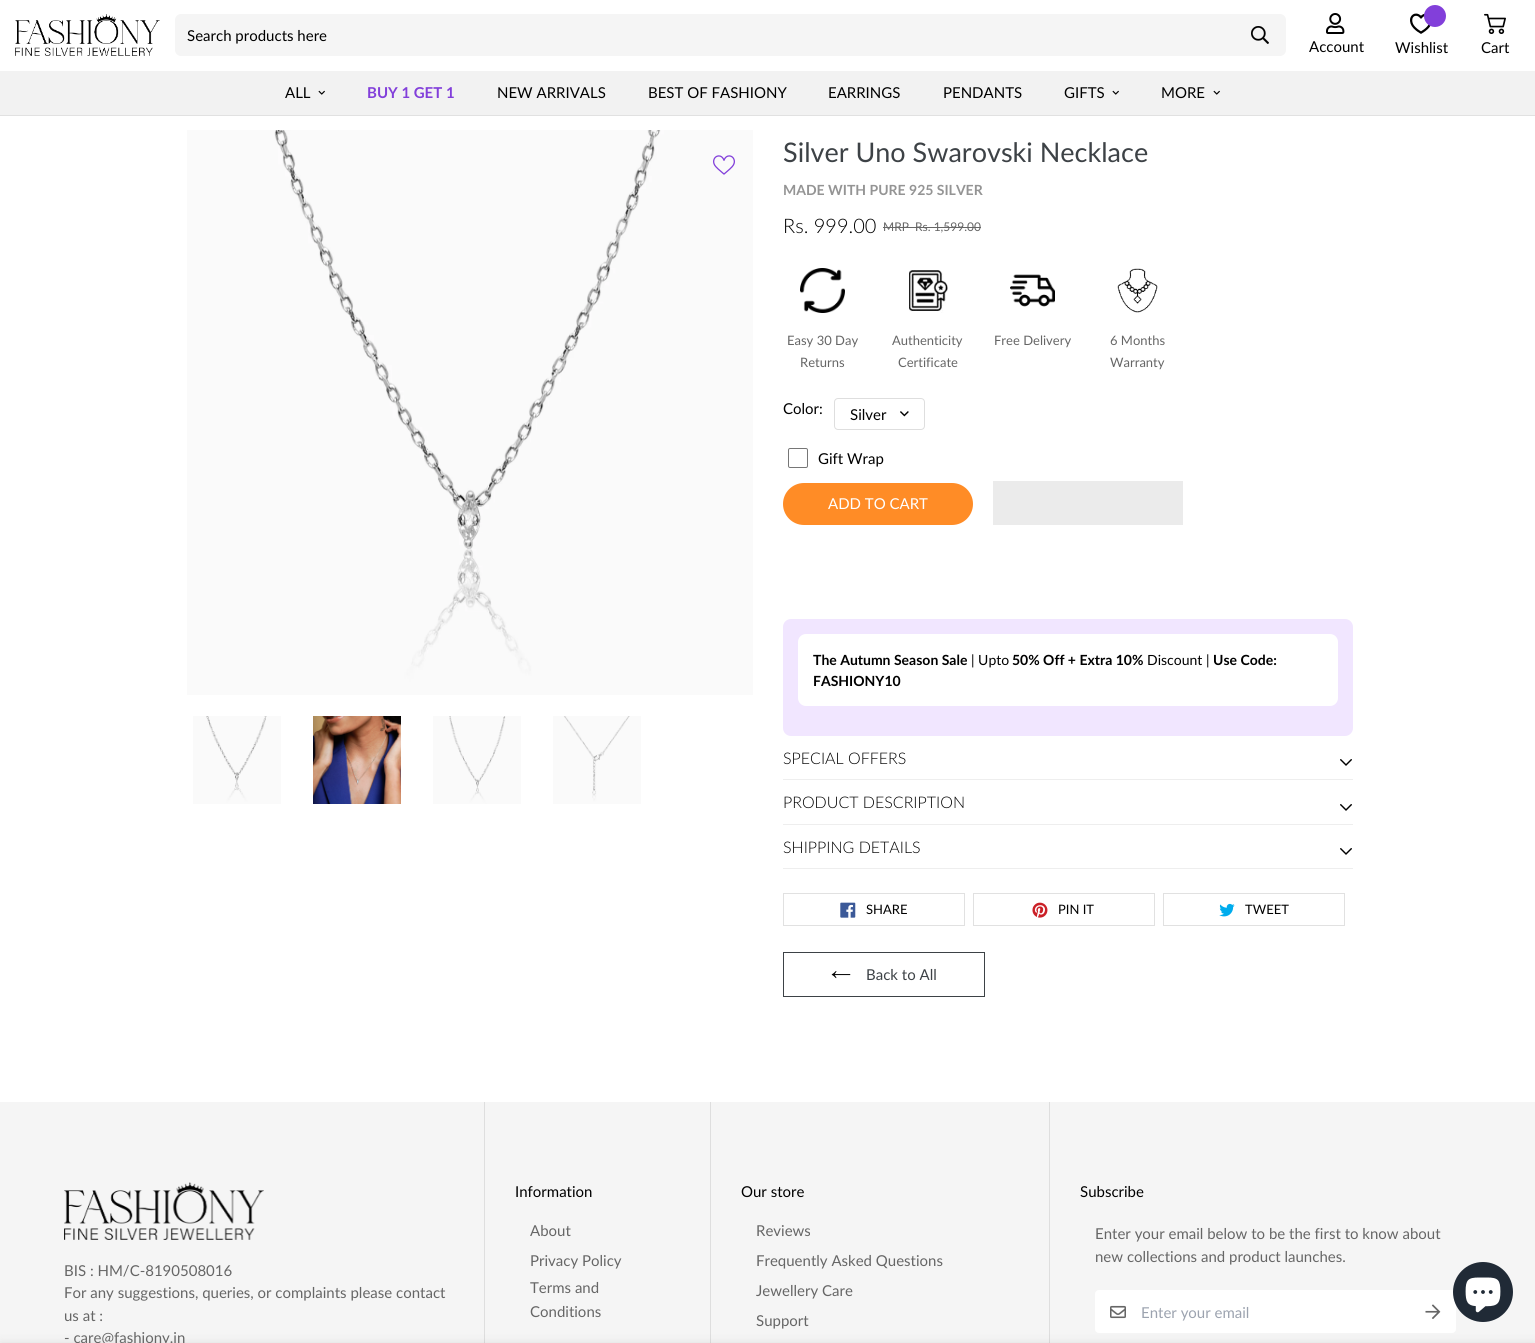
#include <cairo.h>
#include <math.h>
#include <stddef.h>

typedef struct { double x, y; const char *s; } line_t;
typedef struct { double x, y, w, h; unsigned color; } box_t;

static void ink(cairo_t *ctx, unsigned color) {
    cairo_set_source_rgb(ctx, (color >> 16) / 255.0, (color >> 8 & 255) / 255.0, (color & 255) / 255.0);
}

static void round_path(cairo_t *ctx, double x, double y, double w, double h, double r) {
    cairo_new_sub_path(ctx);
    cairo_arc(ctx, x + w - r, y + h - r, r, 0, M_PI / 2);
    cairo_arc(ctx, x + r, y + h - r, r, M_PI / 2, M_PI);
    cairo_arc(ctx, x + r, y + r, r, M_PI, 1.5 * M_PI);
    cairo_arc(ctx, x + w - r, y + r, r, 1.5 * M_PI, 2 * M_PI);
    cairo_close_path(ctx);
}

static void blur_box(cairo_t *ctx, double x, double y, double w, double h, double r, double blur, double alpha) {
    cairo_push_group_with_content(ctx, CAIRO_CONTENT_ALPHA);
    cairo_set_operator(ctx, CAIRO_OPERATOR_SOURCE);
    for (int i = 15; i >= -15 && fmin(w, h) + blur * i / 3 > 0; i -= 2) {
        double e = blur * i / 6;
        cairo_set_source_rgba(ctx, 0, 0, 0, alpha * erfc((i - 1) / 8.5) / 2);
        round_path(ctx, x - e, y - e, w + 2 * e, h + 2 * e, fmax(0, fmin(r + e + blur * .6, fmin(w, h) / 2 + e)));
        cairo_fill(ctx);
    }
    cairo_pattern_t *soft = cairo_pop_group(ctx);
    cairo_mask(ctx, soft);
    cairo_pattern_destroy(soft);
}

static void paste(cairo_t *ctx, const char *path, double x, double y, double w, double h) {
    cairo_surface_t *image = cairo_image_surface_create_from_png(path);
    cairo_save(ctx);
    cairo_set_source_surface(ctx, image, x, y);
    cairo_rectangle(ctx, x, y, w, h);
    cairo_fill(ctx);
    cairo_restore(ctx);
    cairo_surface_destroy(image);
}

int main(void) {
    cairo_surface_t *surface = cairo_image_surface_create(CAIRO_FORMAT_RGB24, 1535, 1343);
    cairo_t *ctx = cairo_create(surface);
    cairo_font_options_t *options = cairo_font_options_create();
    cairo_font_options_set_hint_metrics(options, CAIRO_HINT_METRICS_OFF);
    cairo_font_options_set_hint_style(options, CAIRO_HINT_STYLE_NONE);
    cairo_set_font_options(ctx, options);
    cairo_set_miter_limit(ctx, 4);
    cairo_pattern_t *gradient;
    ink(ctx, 0xFFFFFF);
    cairo_paint(ctx);
    ink(ctx, 0xE1E1E1);
    cairo_rectangle(ctx, 0, 115, 1535, 1);
    cairo_fill(ctx);
    paste(ctx, "media/1.png", 15, 14, 145, 42);
    ink(ctx, 0xF5F5F5);
    round_path(ctx, 175, 14, 1111, 42, 6);
    cairo_fill(ctx);
    cairo_select_font_face(ctx, "Lato", CAIRO_FONT_SLANT_NORMAL, CAIRO_FONT_WEIGHT_NORMAL);
    cairo_set_font_size(ctx, 15);
    ink(ctx, 0x000000);
    cairo_move_to(ctx, 187, 41);
    cairo_show_text(ctx, "Search products here");
    paste(ctx, "media/2.png", 1251, 26, 18, 18);
    paste(ctx, "media/3.png", 1326, 13, 19, 21);
    cairo_move_to(ctx, 1309, 52);
    cairo_show_text(ctx, "Account");
    paste(ctx, "media/4.png", 1410, 13, 21, 21);
    ink(ctx, 0x823FDA);
    cairo_arc(ctx, 1435, 16, 11, 0, 2 * M_PI);
    cairo_fill(ctx);
    ink(ctx, 0x000000);
    cairo_move_to(ctx, 1395, 53);
    cairo_show_text(ctx, "Wishlist");
    paste(ctx, "media/5.png", 1484, 13, 22, 21);
    cairo_move_to(ctx, 1481, 53);
    cairo_show_text(ctx, "Cart");
    ink(ctx, 0xF2F2F2);
    cairo_rectangle(ctx, 0, 71, 1535, 44);
    cairo_fill(ctx);
    ink(ctx, 0x000000);
    cairo_move_to(ctx, 285, 98);
    cairo_show_text(ctx, "ALL");
    paste(ctx, "media/6.png", 318, 90, 7, 5);
    cairo_select_font_face(ctx, "Lato", CAIRO_FONT_SLANT_NORMAL, CAIRO_FONT_WEIGHT_BOLD);
    ink(ctx, 0x823FDA);
    cairo_move_to(ctx, 367, 98);
    cairo_show_text(ctx, "BUY 1 GET 1");
    cairo_select_font_face(ctx, "Lato", CAIRO_FONT_SLANT_NORMAL, CAIRO_FONT_WEIGHT_NORMAL);
    ink(ctx, 0x000000);
    {
        static const line_t items[] = {
            {497, 98, "NEW ARRIVALS"},
            {648, 98, "BEST OF FASHIONY"},
            {828, 98, "EARRINGS"},
            {943, 98, "PENDANTS"},
            {1064, 98, "GIFTS"},
        };
        for (size_t i = 0; i < sizeof items / sizeof *items; i++) {
            cairo_move_to(ctx, items[i].x, items[i].y);
            cairo_show_text(ctx, items[i].s);
        }
    }
    paste(ctx, "media/6.png", 1112, 90, 7, 5);
    cairo_move_to(ctx, 1161, 98);
    cairo_show_text(ctx, "MORE");
    paste(ctx, "media/6.png", 1213, 90, 7, 5);
    paste(ctx, "media/7.png", 187, 130, 566, 565);
    paste(ctx, "media/8.png", 193, 716, 88, 88);
    paste(ctx, "media/9.png", 313, 716, 88, 88);
    paste(ctx, "media/10.png", 433, 716, 88, 88);
    paste(ctx, "media/11.png", 553, 716, 88, 88);
    paste(ctx, "media/12.png", 713, 155, 22, 20);
    cairo_set_font_size(ctx, 27);
    ink(ctx, 0x3D4246);
    cairo_move_to(ctx, 783, 162);
    cairo_show_text(ctx, "Silver Uno Swarovski Necklace");
    cairo_select_font_face(ctx, "Lato", CAIRO_FONT_SLANT_NORMAL, CAIRO_FONT_WEIGHT_BOLD);
    cairo_set_font_size(ctx, 14);
    ink(ctx, 0x949494);
    cairo_move_to(ctx, 783, 195);
    cairo_show_text(ctx, "MADE WITH PURE 925 SILVER");
    cairo_select_font_face(ctx, "Lato Light", CAIRO_FONT_SLANT_NORMAL, CAIRO_FONT_WEIGHT_NORMAL);
    cairo_set_font_size(ctx, 20);
    ink(ctx, 0x000000);
    cairo_move_to(ctx, 783, 233);
    cairo_show_text(ctx, "Rs. 999.00");
    cairo_select_font_face(ctx, "Lato", CAIRO_FONT_SLANT_NORMAL, CAIRO_FONT_WEIGHT_NORMAL);
    cairo_set_font_size(ctx, 12);
    ink(ctx, 0x666666);
    cairo_move_to(ctx, 883, 231);
    cairo_show_text(ctx, "MRP  Rs. 1,599.00");
    cairo_rectangle(ctx, 883, 227, 98, 1);
    cairo_fill(ctx);
    paste(ctx, "media/13.png", 800, 268, 45, 45);
    cairo_set_font_size(ctx, 13);
    cairo_move_to(ctx, 787, 345);
    cairo_show_text(ctx, "Easy 30 Day");
    cairo_move_to(ctx, 800, 367);
    cairo_show_text(ctx, "Returns");
    paste(ctx, "media/14.png", 909, 270, 39, 43);
    cairo_move_to(ctx, 892, 345);
    cairo_show_text(ctx, "Authenticity");
    cairo_move_to(ctx, 898, 367);
    cairo_show_text(ctx, "Certificate");
    paste(ctx, "media/15.png", 1010, 274, 45, 33);
    cairo_move_to(ctx, 994, 345);
    cairo_show_text(ctx, "Free Delivery");
    paste(ctx, "media/16.png", 1117, 268, 41, 45);
    cairo_move_to(ctx, 1110, 345);
    cairo_show_text(ctx, "6 Months");
    cairo_move_to(ctx, 1110, 367);
    cairo_show_text(ctx, "Warranty");
    cairo_set_font_size(ctx, 15);
    ink(ctx, 0x000000);
    cairo_move_to(ctx, 783, 414);
    cairo_show_text(ctx, "Color:");
    paste(ctx, "media/17.png", 900, 411, 9, 6);
    round_path(ctx, 834.5, 398.5, 90, 31, 3.5);
    ink(ctx, 0xDEDEDE);
    cairo_set_line_width(ctx, 1);
    cairo_stroke(ctx);
    ink(ctx, 0x000000);
    cairo_move_to(ctx, 850, 420);
    cairo_show_text(ctx, "Silver");
    round_path(ctx, 788.5, 448.5, 19, 19, 1.5);
    ink(ctx, 0x767676);
    cairo_stroke(ctx);
    ink(ctx, 0x000000);
    cairo_move_to(ctx, 818, 464);
    cairo_show_text(ctx, "Gift Wrap");
    gradient = cairo_pattern_create_linear(787, 471, 969, 537);
    cairo_pattern_add_color_stop_rgba(gradient, 1, 1, 0.549, 0.149, 1);
    cairo_pattern_add_color_stop_rgba(gradient, 1, 0.976, 0.592, 0, 1);
    cairo_set_source(ctx, gradient);
    cairo_pattern_destroy(gradient);
    round_path(ctx, 783, 483, 190, 42, 21);
    cairo_fill(ctx);
    ink(ctx, 0xFFFFFF);
    cairo_move_to(ctx, 828, 509);
    cairo_show_text(ctx, "ADD TO CART");
    ink(ctx, 0xEBEBEB);
    cairo_rectangle(ctx, 993, 481, 190, 44);
    cairo_fill(ctx);
    ink(ctx, 0xF1E6FF);
    round_path(ctx, 783, 619, 570, 117, 8);
    cairo_fill(ctx);
    ink(ctx, 0xFFFFFF);
    round_path(ctx, 798, 634, 540, 72, 8);
    cairo_fill(ctx);
    cairo_select_font_face(ctx, "Lato", CAIRO_FONT_SLANT_NORMAL, CAIRO_FONT_WEIGHT_BOLD);
    cairo_set_font_size(ctx, 14);
    ink(ctx, 0x000000);
    cairo_move_to(ctx, 813, 665);
    cairo_show_text(ctx, "The Autumn Season Sale");
    cairo_select_font_face(ctx, "Lato", CAIRO_FONT_SLANT_NORMAL, CAIRO_FONT_WEIGHT_NORMAL);
    cairo_move_to(ctx, 971, 665);
    cairo_show_text(ctx, "| Upto");
    cairo_select_font_face(ctx, "Lato", CAIRO_FONT_SLANT_NORMAL, CAIRO_FONT_WEIGHT_BOLD);
    cairo_move_to(ctx, 1012, 665);
    cairo_show_text(ctx, "50% Off + Extra 10%");
    cairo_select_font_face(ctx, "Lato", CAIRO_FONT_SLANT_NORMAL, CAIRO_FONT_WEIGHT_NORMAL);
    cairo_move_to(ctx, 1147, 665);
    cairo_show_text(ctx, "Discount |");
    cairo_select_font_face(ctx, "Lato", CAIRO_FONT_SLANT_NORMAL, CAIRO_FONT_WEIGHT_BOLD);
    cairo_move_to(ctx, 1213, 665);
    cairo_show_text(ctx, "Use Code:");
    cairo_move_to(ctx, 813, 686);
    cairo_show_text(ctx, "FASHIONY10");
    ink(ctx, 0xEEEEEE);
    cairo_rectangle(ctx, 783, 779, 570, 1);
    cairo_fill(ctx);
    cairo_select_font_face(ctx, "Lato Light", CAIRO_FONT_SLANT_NORMAL, CAIRO_FONT_WEIGHT_NORMAL);
    cairo_set_font_size(ctx, 16);
    ink(ctx, 0x000000);
    cairo_move_to(ctx, 783, 764);
    cairo_show_text(ctx, "SPECIAL OFFERS");
    paste(ctx, "media/18.png", 1340, 759, 12, 7);
    ink(ctx, 0xEEEEEE);
    cairo_rectangle(ctx, 783, 824, 570, 1);
    cairo_fill(ctx);
    ink(ctx, 0x000000);
    cairo_move_to(ctx, 783, 808);
    cairo_show_text(ctx, "PRODUCT DESCRIPTION");
    paste(ctx, "media/18.png", 1340, 804, 12, 7);
    ink(ctx, 0xEEEEEE);
    cairo_rectangle(ctx, 783, 868, 570, 1);
    cairo_fill(ctx);
    ink(ctx, 0x000000);
    cairo_move_to(ctx, 783, 853);
    cairo_show_text(ctx, "SHIPPING DETAILS");
    paste(ctx, "media/18.png", 1340, 848, 12, 7);
    cairo_rectangle(ctx, 783.5, 893.5, 181, 32);
    ink(ctx, 0xE1E1E1);
    cairo_stroke(ctx);
    paste(ctx, "media/19.png", 840, 902, 16, 16);
    cairo_select_font_face(ctx, "Lato", CAIRO_FONT_SLANT_NORMAL, CAIRO_FONT_WEIGHT_NORMAL);
    cairo_set_font_size(ctx, 13);
    ink(ctx, 0x000000);
    cairo_move_to(ctx, 866, 914);
    cairo_show_text(ctx, "SHARE");
    cairo_rectangle(ctx, 973.5, 893.5, 181, 32);
    ink(ctx, 0xE1E1E1);
    cairo_stroke(ctx);
    paste(ctx, "media/20.png", 1032, 902, 16, 16);
    ink(ctx, 0x000000);
    cairo_move_to(ctx, 1058, 914);
    cairo_show_text(ctx, "PIN IT");
    cairo_rectangle(ctx, 1163.5, 893.5, 181, 32);
    ink(ctx, 0xE1E1E1);
    cairo_stroke(ctx);
    paste(ctx, "media/21.png", 1219, 903, 16, 14);
    ink(ctx, 0x000000);
    cairo_move_to(ctx, 1245, 914);
    cairo_show_text(ctx, "TWEET");
    cairo_rectangle(ctx, 783.5, 952.5, 201, 44);
    ink(ctx, 0x3D4246);
    cairo_stroke(ctx);
    paste(ctx, "media/22.png", 831, 971, 20, 8);
    cairo_set_font_size(ctx, 15);
    cairo_move_to(ctx, 866, 980);
    cairo_show_text(ctx, "Back to All");
    {
        static const box_t items[] = {
            {0, 1102, 1535, 241, 0xF5F5F5},
            {484, 1102, 1, 241, 0xDEDEDE},
            {710, 1102, 1, 241, 0xDEDEDE},
            {1049, 1102, 1, 241, 0xDEDEDE},
        };
        for (size_t i = 0; i < sizeof items / sizeof *items; i++) {
            ink(ctx, items[i].color);
            cairo_rectangle(ctx, items[i].x, items[i].y, items[i].w, items[i].h);
            cairo_fill(ctx);
        }
    }
    ink(ctx, 0xFFFFFF);
    round_path(ctx, 1095, 1290, 361, 43, 4);
    cairo_fill(ctx);
    ink(ctx, 0x000000);
    blur_box(ctx, 0, 1343, 1535, 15, 0, 5, 0.09);
    paste(ctx, "media/23.png", 64, 1182, 200, 58);
    ink(ctx, 0x666666);
    {
        static const line_t items[] = {
            {64, 1276, "BIS : HM/C-8190508016"},
            {64, 1298, "For any suggestions, queries, or complaints please contact"},
            {64, 1321, "us at :"},
            {64, 1343, "- care@fashiony.in"},
        };
        for (size_t i = 0; i < sizeof items / sizeof *items; i++) {
            cairo_move_to(ctx, items[i].x, items[i].y);
            cairo_show_text(ctx, items[i].s);
        }
    }
    ink(ctx, 0x000000);
    cairo_move_to(ctx, 515, 1197);
    cairo_show_text(ctx, "Information");
    ink(ctx, 0x666666);
    {
        static const line_t items[] = {
            {530, 1236, "About"},
            {530, 1266, "Privacy Policy"},
            {530, 1293, "Terms and"},
            {530, 1317, "Conditions"},
        };
        for (size_t i = 0; i < sizeof items / sizeof *items; i++) {
            cairo_move_to(ctx, items[i].x, items[i].y);
            cairo_show_text(ctx, items[i].s);
        }
    }
    ink(ctx, 0x000000);
    cairo_move_to(ctx, 741, 1197);
    cairo_show_text(ctx, "Our store");
    ink(ctx, 0x666666);
    {
        static const line_t items[] = {
            {756, 1236, "Reviews"},
            {756, 1266, "Frequently Asked Questions"},
            {756, 1296, "Jewellery Care"},
            {756, 1326, "Support"},
        };
        for (size_t i = 0; i < sizeof items / sizeof *items; i++) {
            cairo_move_to(ctx, items[i].x, items[i].y);
            cairo_show_text(ctx, items[i].s);
        }
    }
    ink(ctx, 0x000000);
    cairo_move_to(ctx, 1080, 1197);
    cairo_show_text(ctx, "Subscribe");
    ink(ctx, 0x666666);
    cairo_move_to(ctx, 1095, 1239);
    cairo_show_text(ctx, "Enter your email below to be the first to know about");
    cairo_move_to(ctx, 1095, 1262);
    cairo_show_text(ctx, "new collections and product launches.");
    paste(ctx, "media/24.png", 1110, 1305, 16, 14);
    ink(ctx, 0x9CA3AF);
    cairo_move_to(ctx, 1141, 1318);
    cairo_show_text(ctx, "Enter your email");
    paste(ctx, "media/25.png", 1425, 1304, 16, 15);
    ink(ctx, 0x202A36);
    cairo_arc(ctx, 1483, 1292, 30, 0, 2 * M_PI);
    cairo_fill(ctx);
    paste(ctx, "media/26.png", 1465, 1277, 36, 36);
    cairo_surface_write_to_png(surface, "image.png");
    cairo_font_options_destroy(options);
    cairo_destroy(ctx);
    cairo_surface_destroy(surface);
    return 0;
}
